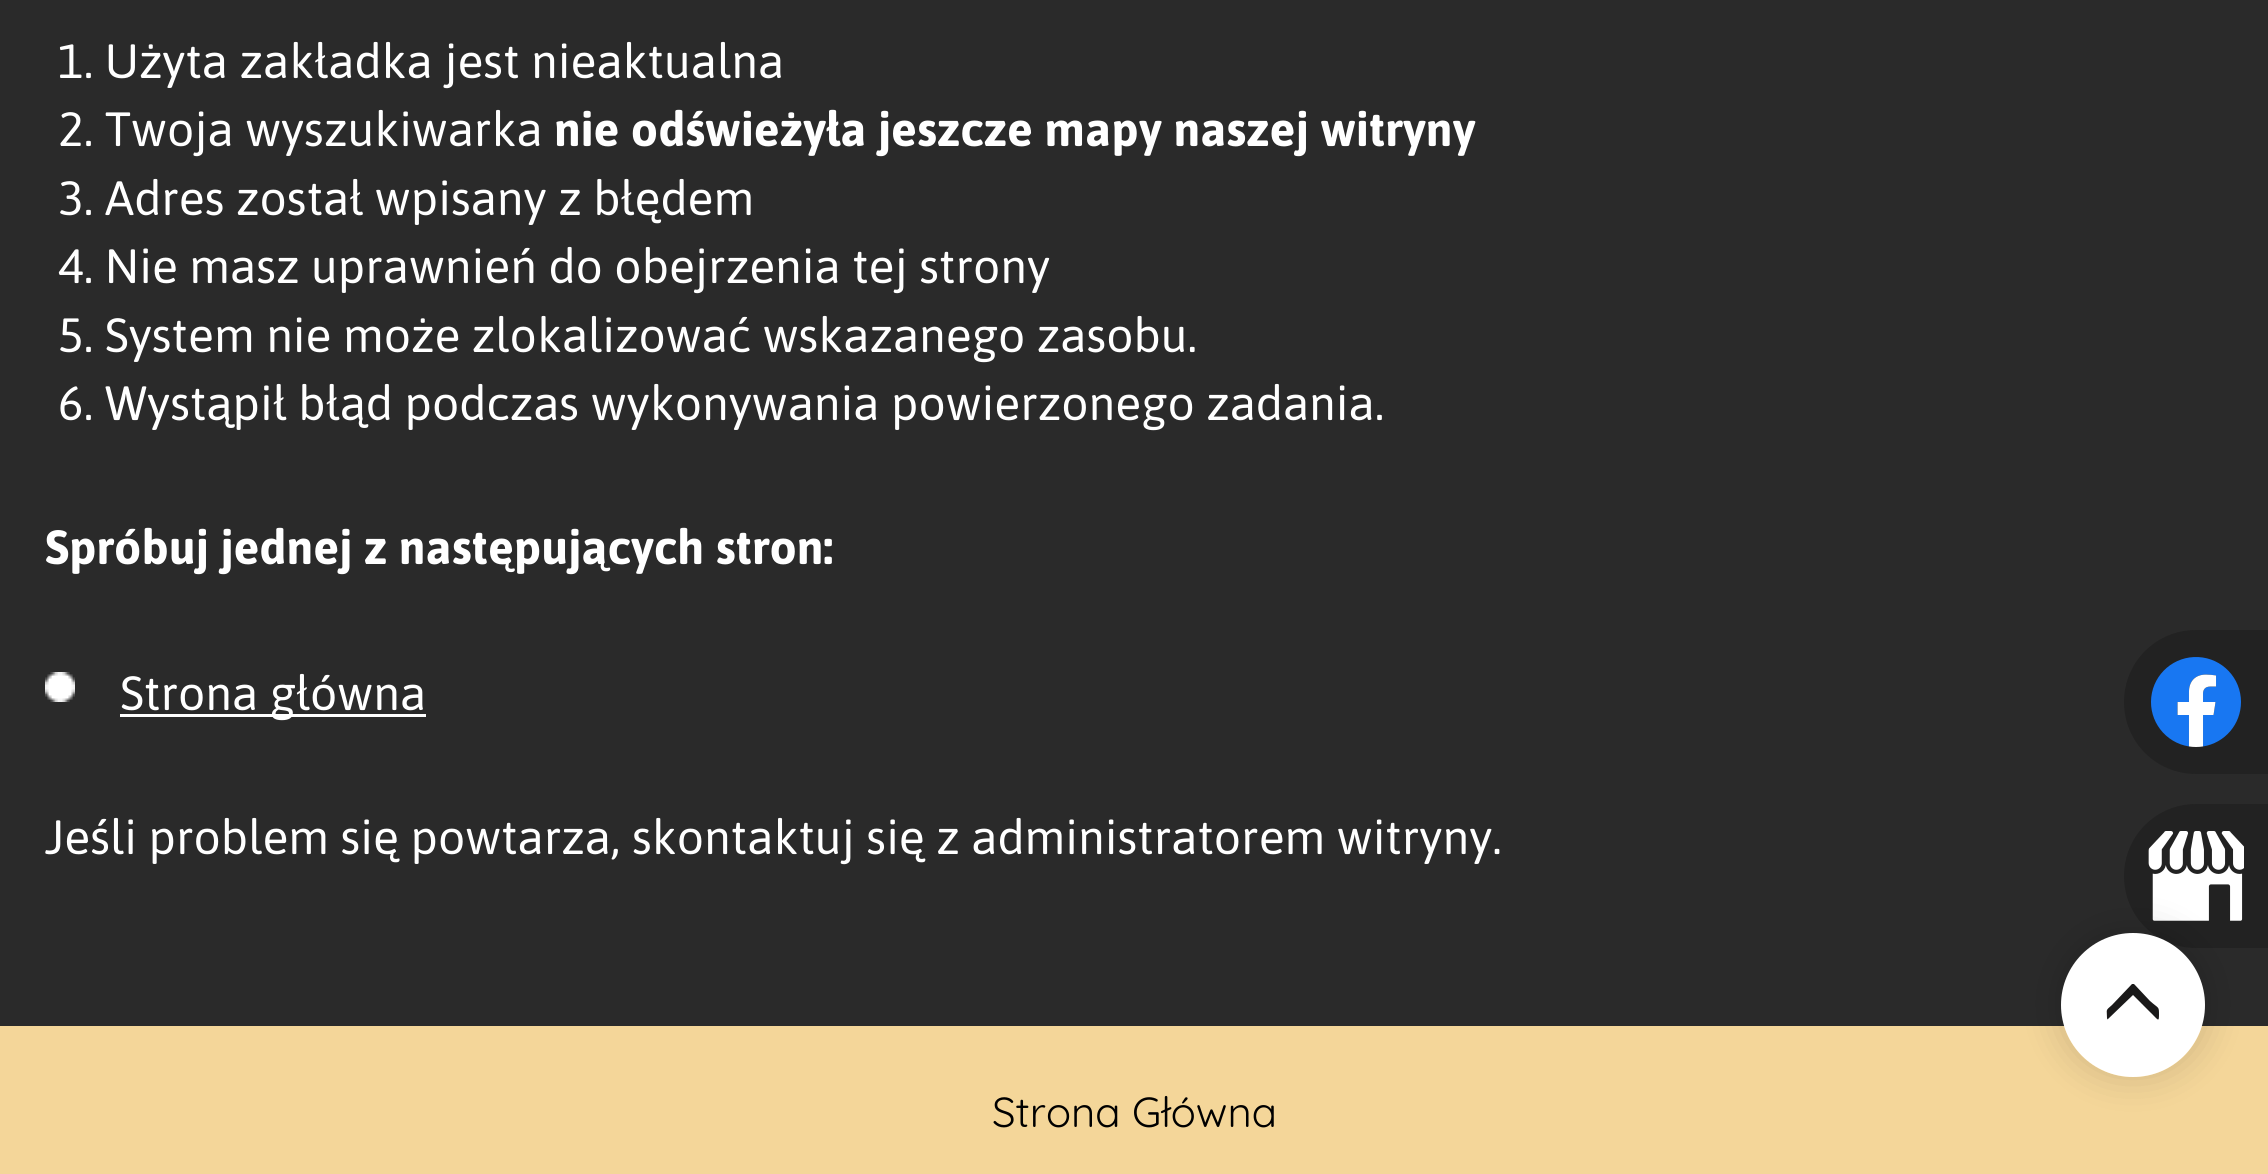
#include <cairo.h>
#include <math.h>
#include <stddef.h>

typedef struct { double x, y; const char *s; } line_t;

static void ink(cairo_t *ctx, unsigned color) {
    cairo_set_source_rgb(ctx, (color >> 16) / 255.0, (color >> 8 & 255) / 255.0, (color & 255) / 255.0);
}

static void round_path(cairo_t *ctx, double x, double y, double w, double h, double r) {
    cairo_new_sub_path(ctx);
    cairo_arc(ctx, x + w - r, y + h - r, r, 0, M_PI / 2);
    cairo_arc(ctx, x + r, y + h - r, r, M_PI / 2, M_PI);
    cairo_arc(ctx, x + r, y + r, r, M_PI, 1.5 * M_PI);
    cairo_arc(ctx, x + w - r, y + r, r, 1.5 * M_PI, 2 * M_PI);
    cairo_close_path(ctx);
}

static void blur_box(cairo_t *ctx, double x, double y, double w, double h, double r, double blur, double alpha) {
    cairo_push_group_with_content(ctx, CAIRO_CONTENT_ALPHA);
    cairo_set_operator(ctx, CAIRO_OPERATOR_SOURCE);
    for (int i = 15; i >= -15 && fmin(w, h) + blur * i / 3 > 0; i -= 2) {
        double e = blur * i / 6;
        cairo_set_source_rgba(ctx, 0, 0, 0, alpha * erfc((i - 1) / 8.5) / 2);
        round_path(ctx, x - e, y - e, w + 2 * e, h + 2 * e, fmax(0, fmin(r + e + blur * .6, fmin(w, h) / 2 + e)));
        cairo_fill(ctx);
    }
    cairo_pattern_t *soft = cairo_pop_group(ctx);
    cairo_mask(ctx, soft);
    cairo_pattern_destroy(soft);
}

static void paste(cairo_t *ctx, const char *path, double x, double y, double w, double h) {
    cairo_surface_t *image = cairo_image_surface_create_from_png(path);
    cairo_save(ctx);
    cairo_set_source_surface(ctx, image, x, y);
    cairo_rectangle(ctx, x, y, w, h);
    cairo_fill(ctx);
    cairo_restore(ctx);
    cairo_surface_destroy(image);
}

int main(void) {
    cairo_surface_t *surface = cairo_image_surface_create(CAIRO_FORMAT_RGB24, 2268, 1174);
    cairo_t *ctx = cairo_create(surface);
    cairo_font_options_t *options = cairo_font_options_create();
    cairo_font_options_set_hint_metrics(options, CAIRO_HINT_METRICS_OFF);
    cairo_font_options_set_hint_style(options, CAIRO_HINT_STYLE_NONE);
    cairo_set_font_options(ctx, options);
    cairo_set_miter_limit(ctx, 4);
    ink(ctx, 0x2A2A2A);
    cairo_paint(ctx);
    cairo_select_font_face(ctx, "Asap", CAIRO_FONT_SLANT_NORMAL, CAIRO_FONT_WEIGHT_NORMAL);
    cairo_set_font_size(ctx, 48);
    ink(ctx, 0xFFFFFF);
    cairo_move_to(ctx, 58, 78);
    cairo_show_text(ctx, "1. Użyta zakładka jest nieaktualna");
    cairo_move_to(ctx, 58, 146);
    cairo_show_text(ctx, "2. Twoja wyszukiwarka");
    cairo_select_font_face(ctx, "Asap", CAIRO_FONT_SLANT_NORMAL, CAIRO_FONT_WEIGHT_BOLD);
    cairo_move_to(ctx, 554, 146);
    cairo_show_text(ctx, "nie odświeżyła jeszcze mapy naszej witryny");
    cairo_select_font_face(ctx, "Asap", CAIRO_FONT_SLANT_NORMAL, CAIRO_FONT_WEIGHT_NORMAL);
    {
        static const line_t items[] = {
            {58, 215, "3. Adres został wpisany z błędem"},
            {58, 283, "4. Nie masz uprawnień do obejrzenia tej strony"},
            {58, 352, "5. System nie może zlokalizować wskazanego zasobu."},
            {58, 420, "6. Wystąpił błąd podczas wykonywania powierzonego zadania."},
        };
        for (size_t i = 0; i < sizeof items / sizeof *items; i++) {
            cairo_move_to(ctx, items[i].x, items[i].y);
            cairo_show_text(ctx, items[i].s);
        }
    }
    cairo_select_font_face(ctx, "Asap", CAIRO_FONT_SLANT_NORMAL, CAIRO_FONT_WEIGHT_BOLD);
    cairo_move_to(ctx, 45, 564);
    cairo_show_text(ctx, "Spróbuj jednej z następujących stron:");
    paste(ctx, "media/1.png", 45, 672, 30, 30);
    cairo_rectangle(ctx, 120, 714, 306, 3);
    cairo_fill(ctx);
    cairo_select_font_face(ctx, "Asap", CAIRO_FONT_SLANT_NORMAL, CAIRO_FONT_WEIGHT_NORMAL);
    cairo_move_to(ctx, 120, 710);
    cairo_show_text(ctx, "Strona główna");
    cairo_move_to(ctx, 45, 854);
    cairo_show_text(ctx, "Jeśli problem się powtarza, skontaktuj się z administratorem witryny.");
    ink(ctx, 0x222222);
    cairo_new_path(ctx);
    cairo_move_to(ctx, 2196, 630);
    cairo_line_to(ctx, 2268, 630);
    cairo_line_to(ctx, 2268, 774);
    cairo_line_to(ctx, 2196, 774);
    cairo_curve_to(ctx, 2156, 774, 2124, 742, 2124, 702);
    cairo_curve_to(ctx, 2124, 662, 2156, 630, 2196, 630);
    cairo_close_path(ctx);
    cairo_fill(ctx);
    paste(ctx, "media/2.png", 2151, 657, 90, 90);
    cairo_new_path(ctx);
    cairo_move_to(ctx, 2196, 804);
    cairo_line_to(ctx, 2268, 804);
    cairo_line_to(ctx, 2268, 948);
    cairo_line_to(ctx, 2196, 948);
    cairo_curve_to(ctx, 2156, 948, 2124, 916, 2124, 876);
    cairo_curve_to(ctx, 2124, 836, 2156, 804, 2196, 804);
    cairo_close_path(ctx);
    cairo_fill(ctx);
    paste(ctx, "media/3.png", 2148, 831, 96, 90);
    ink(ctx, 0xF4D699);
    cairo_rectangle(ctx, 0, 1026, 2268, 148);
    cairo_fill(ctx);
    cairo_select_font_face(ctx, "Quicksand", CAIRO_FONT_SLANT_NORMAL, CAIRO_FONT_WEIGHT_NORMAL);
    cairo_set_font_size(ctx, 42);
    ink(ctx, 0x000000);
    cairo_move_to(ctx, 992, 1127);
    cairo_show_text(ctx, "Strona Główna");
    cairo_save(ctx);
    cairo_set_fill_rule(ctx, CAIRO_FILL_RULE_EVEN_ODD);
    cairo_new_path(ctx);
    cairo_move_to(ctx, 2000, 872);
    cairo_line_to(ctx, 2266, 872);
    cairo_line_to(ctx, 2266, 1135);
    cairo_line_to(ctx, 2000, 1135);
    cairo_close_path(ctx);
    cairo_move_to(ctx, 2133, 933);
    cairo_curve_to(ctx, 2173, 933, 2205, 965, 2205, 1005);
    cairo_curve_to(ctx, 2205, 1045, 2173, 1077, 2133, 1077);
    cairo_curve_to(ctx, 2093, 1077, 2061, 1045, 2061, 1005);
    cairo_curve_to(ctx, 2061, 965, 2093, 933, 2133, 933);
    cairo_close_path(ctx);
    cairo_clip(ctx);
    ink(ctx, 0x000000);
    blur_box(ctx, 2058, 930, 150, 147, 73.5, 19, 0.15);
    cairo_restore(ctx);
    ink(ctx, 0xFFFFFF);
    cairo_arc(ctx, 2133, 1005, 72, 0, 2 * M_PI);
    cairo_fill(ctx);
    ink(ctx, 0x1A1919);
    cairo_new_path(ctx);
    cairo_move_to(ctx, 2134, 984);
    cairo_line_to(ctx, 2150, 1001);
    cairo_curve_to(ctx, 2159, 1009, 2159, 1006, 2159, 1015);
    cairo_curve_to(ctx, 2159, 1022, 2158, 1020, 2153, 1015);
    cairo_line_to(ctx, 2133, 995);
    cairo_line_to(ctx, 2108, 1019);
    cairo_curve_to(ctx, 2108, 1020, 2107, 1019, 2107, 1018);
    cairo_curve_to(ctx, 2107, 1009, 2105, 1011, 2112, 1005);
    cairo_line_to(ctx, 2132, 984);
    cairo_close_path(ctx);
    cairo_fill(ctx);
    cairo_surface_write_to_png(surface, "image.png");
    cairo_font_options_destroy(options);
    cairo_destroy(ctx);
    cairo_surface_destroy(surface);
    return 0;
}
